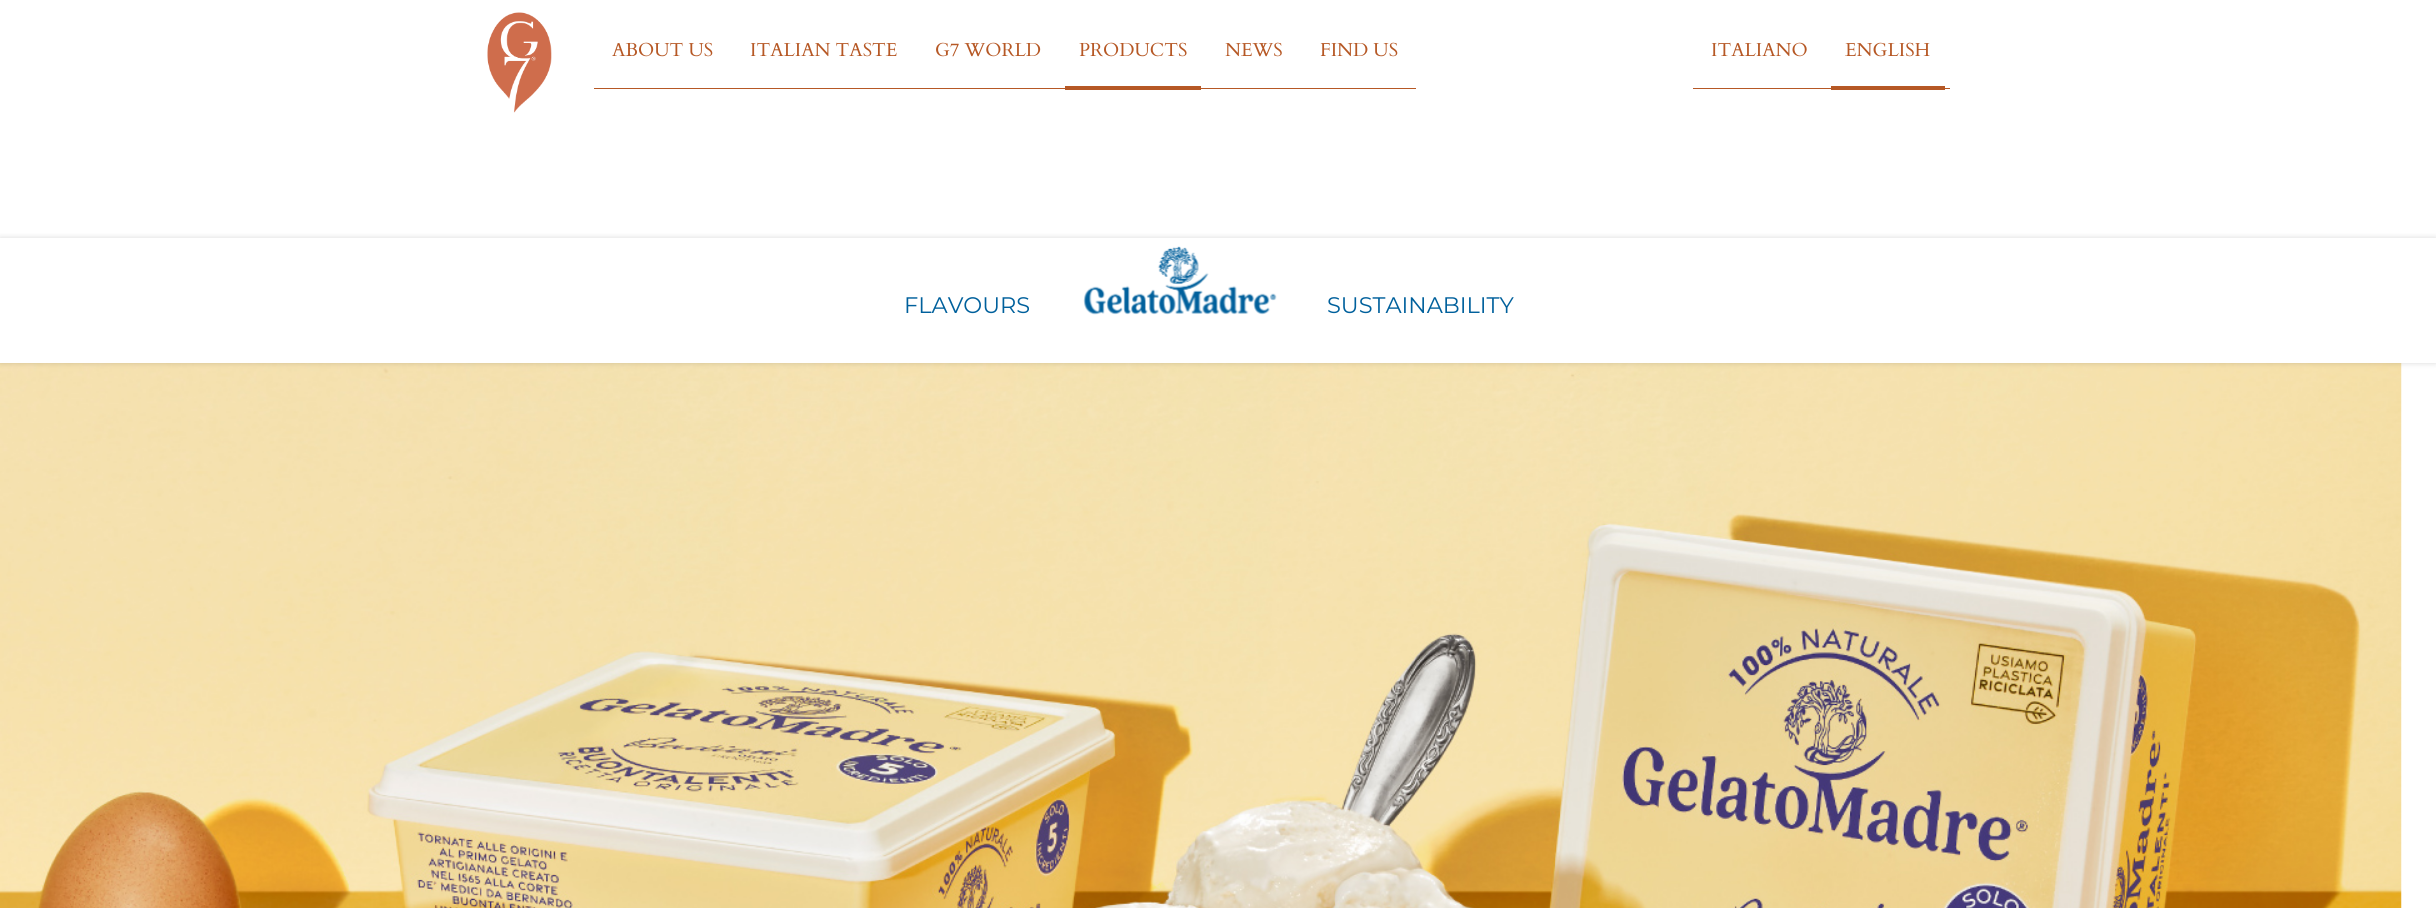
#include <cairo.h>
#include <math.h>
#include <stddef.h>

typedef struct { double x, y; const char *s; } line_t;

static void ink(cairo_t *ctx, unsigned color) {
    cairo_set_source_rgb(ctx, (color >> 16) / 255.0, (color >> 8 & 255) / 255.0, (color & 255) / 255.0);
}

static void round_path(cairo_t *ctx, double x, double y, double w, double h, double r) {
    cairo_new_sub_path(ctx);
    cairo_arc(ctx, x + w - r, y + h - r, r, 0, M_PI / 2);
    cairo_arc(ctx, x + r, y + h - r, r, M_PI / 2, M_PI);
    cairo_arc(ctx, x + r, y + r, r, M_PI, 1.5 * M_PI);
    cairo_arc(ctx, x + w - r, y + r, r, 1.5 * M_PI, 2 * M_PI);
    cairo_close_path(ctx);
}

static void blur_box(cairo_t *ctx, double x, double y, double w, double h, double r, double blur, double alpha) {
    cairo_push_group_with_content(ctx, CAIRO_CONTENT_ALPHA);
    cairo_set_operator(ctx, CAIRO_OPERATOR_SOURCE);
    for (int i = 15; i >= -15 && fmin(w, h) + blur * i / 3 > 0; i -= 2) {
        double e = blur * i / 6;
        cairo_set_source_rgba(ctx, 0, 0, 0, alpha * erfc((i - 1) / 8.5) / 2);
        round_path(ctx, x - e, y - e, w + 2 * e, h + 2 * e, fmax(0, fmin(r + e + blur * .6, fmin(w, h) / 2 + e)));
        cairo_fill(ctx);
    }
    cairo_pattern_t *soft = cairo_pop_group(ctx);
    cairo_mask(ctx, soft);
    cairo_pattern_destroy(soft);
}

static void paste(cairo_t *ctx, const char *path, double x, double y, double w, double h) {
    cairo_surface_t *image = cairo_image_surface_create_from_png(path);
    cairo_save(ctx);
    cairo_set_source_surface(ctx, image, x, y);
    cairo_rectangle(ctx, x, y, w, h);
    cairo_fill(ctx);
    cairo_restore(ctx);
    cairo_surface_destroy(image);
}

int main(void) {
    cairo_surface_t *surface = cairo_image_surface_create(CAIRO_FORMAT_RGB24, 2436, 908);
    cairo_t *ctx = cairo_create(surface);
    cairo_font_options_t *options = cairo_font_options_create();
    cairo_font_options_set_hint_metrics(options, CAIRO_HINT_METRICS_OFF);
    cairo_font_options_set_hint_style(options, CAIRO_HINT_STYLE_NONE);
    cairo_set_font_options(ctx, options);
    cairo_set_miter_limit(ctx, 4);
    ink(ctx, 0xFFFFFF);
    cairo_paint(ctx);
    paste(ctx, "media/1.png", 487, 12, 65, 101);
    ink(ctx, 0xB65825);
    cairo_rectangle(ctx, 594, 88, 822, 1);
    cairo_fill(ctx);
    cairo_select_font_face(ctx, "Cardo", CAIRO_FONT_SLANT_NORMAL, CAIRO_FONT_WEIGHT_NORMAL);
    cairo_set_font_size(ctx, 18.75);
    {
        static const line_t items[] = {
            {612, 56, "ABOUT US"},
            {750, 56, "ITALIAN TASTE"},
            {935, 56, "G7 WORLD"},
            {1079, 56, "PRODUCTS"},
        };
        for (size_t i = 0; i < sizeof items / sizeof *items; i++) {
            cairo_move_to(ctx, items[i].x, items[i].y);
            cairo_show_text(ctx, items[i].s);
        }
    }
    cairo_rectangle(ctx, 1065, 86, 136, 4);
    cairo_fill(ctx);
    cairo_move_to(ctx, 1225, 56);
    cairo_show_text(ctx, "NEWS");
    cairo_move_to(ctx, 1320, 56);
    cairo_show_text(ctx, "FIND US");
    cairo_rectangle(ctx, 1693, 88, 257, 1);
    cairo_fill(ctx);
    cairo_move_to(ctx, 1711, 56);
    cairo_show_text(ctx, "ITALIANO");
    cairo_move_to(ctx, 1845, 56);
    cairo_show_text(ctx, "ENGLISH");
    cairo_rectangle(ctx, 1831, 86, 114, 4);
    cairo_fill(ctx);
    paste(ctx, "media/3.png", 0, 363, 2402, 545);
    ink(ctx, 0x000000);
    blur_box(ctx, 0, 238, 2436, 125, 0, 3, 0.15);
    ink(ctx, 0xFFFFFF);
    cairo_rectangle(ctx, 0, 238, 2436, 125);
    cairo_fill(ctx);
    cairo_select_font_face(ctx, "Montserrat", CAIRO_FONT_SLANT_NORMAL, CAIRO_FONT_WEIGHT_NORMAL);
    cairo_set_font_size(ctx, 22.5);
    ink(ctx, 0x00609C);
    cairo_move_to(ctx, 904, 313);
    cairo_show_text(ctx, "FLAVOURS");
    paste(ctx, "media/2.png", 1083, 246, 194, 69);
    cairo_move_to(ctx, 1327, 313);
    cairo_show_text(ctx, "SUSTAINABILITY");
    cairo_surface_write_to_png(surface, "image.png");
    cairo_font_options_destroy(options);
    cairo_destroy(ctx);
    cairo_surface_destroy(surface);
    return 0;
}
